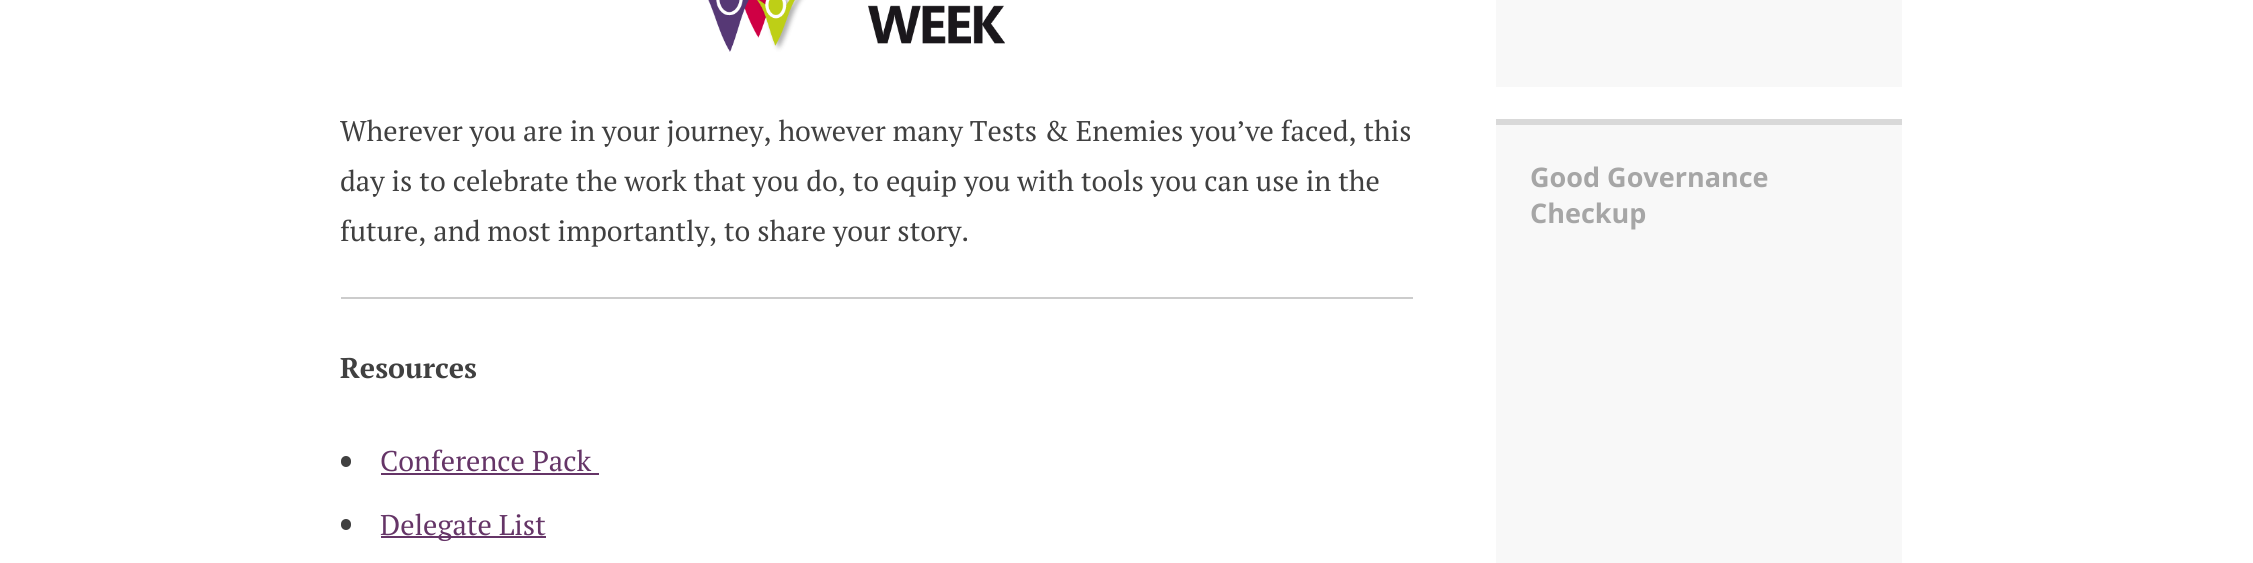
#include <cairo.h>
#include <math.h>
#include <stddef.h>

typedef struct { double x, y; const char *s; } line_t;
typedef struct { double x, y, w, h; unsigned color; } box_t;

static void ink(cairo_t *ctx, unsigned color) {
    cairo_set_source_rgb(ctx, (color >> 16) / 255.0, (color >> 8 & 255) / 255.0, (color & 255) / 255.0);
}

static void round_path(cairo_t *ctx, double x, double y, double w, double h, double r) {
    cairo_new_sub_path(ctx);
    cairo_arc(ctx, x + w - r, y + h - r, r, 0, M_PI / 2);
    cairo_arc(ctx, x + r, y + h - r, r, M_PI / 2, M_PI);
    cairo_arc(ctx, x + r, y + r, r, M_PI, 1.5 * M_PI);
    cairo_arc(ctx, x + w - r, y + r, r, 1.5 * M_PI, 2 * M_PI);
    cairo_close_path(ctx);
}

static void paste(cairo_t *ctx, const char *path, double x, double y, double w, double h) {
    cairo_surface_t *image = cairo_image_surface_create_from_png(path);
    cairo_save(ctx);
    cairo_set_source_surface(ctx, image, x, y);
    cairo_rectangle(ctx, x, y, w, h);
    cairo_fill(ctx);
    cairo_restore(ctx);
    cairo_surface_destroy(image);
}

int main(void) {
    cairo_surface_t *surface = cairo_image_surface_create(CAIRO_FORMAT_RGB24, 2253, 563);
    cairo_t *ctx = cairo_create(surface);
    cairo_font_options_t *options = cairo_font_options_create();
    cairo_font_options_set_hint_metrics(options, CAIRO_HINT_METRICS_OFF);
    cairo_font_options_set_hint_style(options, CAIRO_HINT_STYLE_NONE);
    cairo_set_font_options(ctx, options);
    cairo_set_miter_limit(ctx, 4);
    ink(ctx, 0xFFFFFF);
    cairo_paint(ctx);
    paste(ctx, "media/1.png", 708, 0, 297, 52);
    cairo_select_font_face(ctx, "PT Serif", CAIRO_FONT_SLANT_NORMAL, CAIRO_FONT_WEIGHT_NORMAL);
    cairo_set_font_size(ctx, 28.5);
    ink(ctx, 0x404040);
    {
        static const line_t items[] = {
            {340, 141, "Wherever you are in your journey, however many Tests & Enemies you’ve faced, this"},
            {340, 191, "day is to celebrate the work that you do, to equip you with tools you can use in the"},
            {340, 241, "future, and most importantly, to share your story."},
        };
        for (size_t i = 0; i < sizeof items / sizeof *items; i++) {
            cairo_move_to(ctx, items[i].x, items[i].y);
            cairo_show_text(ctx, items[i].s);
        }
    }
    ink(ctx, 0xCCCCCC);
    cairo_rectangle(ctx, 341, 297, 1072, 2);
    cairo_fill(ctx);
    cairo_select_font_face(ctx, "PT Serif", CAIRO_FONT_SLANT_NORMAL, CAIRO_FONT_WEIGHT_BOLD);
    ink(ctx, 0x404040);
    cairo_move_to(ctx, 340, 378);
    cairo_show_text(ctx, "Resources");
    round_path(ctx, 341, 456, 10, 11, 5);
    cairo_fill(ctx);
    cairo_select_font_face(ctx, "PT Serif", CAIRO_FONT_SLANT_NORMAL, CAIRO_FONT_WEIGHT_NORMAL);
    ink(ctx, 0x653567);
    cairo_move_to(ctx, 380, 471);
    cairo_show_text(ctx, "Conference Pack");
    cairo_rectangle(ctx, 381, 473, 218, 2);
    cairo_fill(ctx);
    ink(ctx, 0x404040);
    round_path(ctx, 341, 519, 10, 11, 5);
    cairo_fill(ctx);
    ink(ctx, 0x653567);
    cairo_rectangle(ctx, 381, 536, 165, 2);
    cairo_fill(ctx);
    cairo_move_to(ctx, 380, 535);
    cairo_show_text(ctx, "Delegate List");
    {
        static const box_t items[] = {
            {1496, 0, 406, 87, 0xF8F8F8},
            {1496, 125, 406, 438, 0xF8F8F8},
            {1496, 119, 406, 6, 0xD9D9D9},
        };
        for (size_t i = 0; i < sizeof items / sizeof *items; i++) {
            ink(ctx, items[i].color);
            cairo_rectangle(ctx, items[i].x, items[i].y, items[i].w, items[i].h);
            cairo_fill(ctx);
        }
    }
    cairo_select_font_face(ctx, "Open Sans", CAIRO_FONT_SLANT_NORMAL, CAIRO_FONT_WEIGHT_BOLD);
    cairo_set_font_size(ctx, 27);
    ink(ctx, 0xA6A6A6);
    cairo_move_to(ctx, 1530, 187);
    cairo_show_text(ctx, "Good Governance");
    cairo_move_to(ctx, 1530, 223);
    cairo_show_text(ctx, "Checkup");
    cairo_surface_write_to_png(surface, "image.png");
    cairo_font_options_destroy(options);
    cairo_destroy(ctx);
    cairo_surface_destroy(surface);
    return 0;
}
